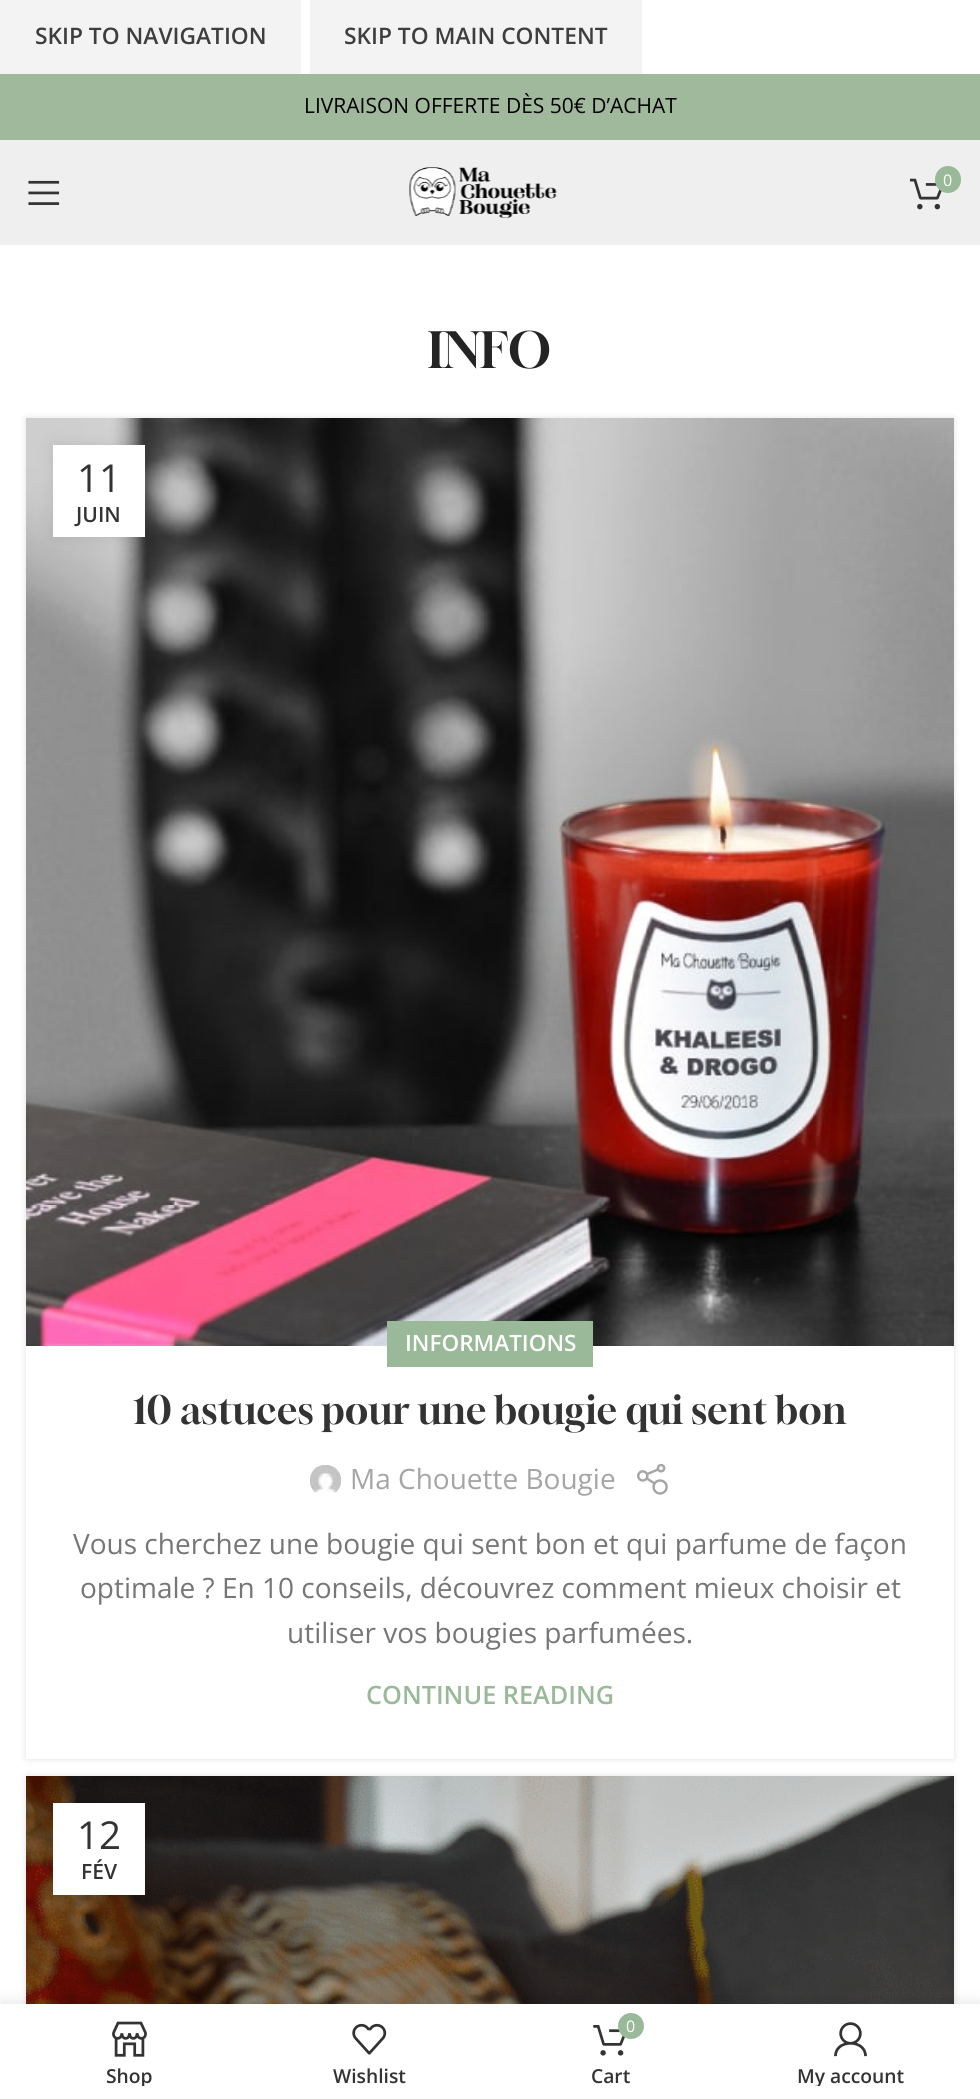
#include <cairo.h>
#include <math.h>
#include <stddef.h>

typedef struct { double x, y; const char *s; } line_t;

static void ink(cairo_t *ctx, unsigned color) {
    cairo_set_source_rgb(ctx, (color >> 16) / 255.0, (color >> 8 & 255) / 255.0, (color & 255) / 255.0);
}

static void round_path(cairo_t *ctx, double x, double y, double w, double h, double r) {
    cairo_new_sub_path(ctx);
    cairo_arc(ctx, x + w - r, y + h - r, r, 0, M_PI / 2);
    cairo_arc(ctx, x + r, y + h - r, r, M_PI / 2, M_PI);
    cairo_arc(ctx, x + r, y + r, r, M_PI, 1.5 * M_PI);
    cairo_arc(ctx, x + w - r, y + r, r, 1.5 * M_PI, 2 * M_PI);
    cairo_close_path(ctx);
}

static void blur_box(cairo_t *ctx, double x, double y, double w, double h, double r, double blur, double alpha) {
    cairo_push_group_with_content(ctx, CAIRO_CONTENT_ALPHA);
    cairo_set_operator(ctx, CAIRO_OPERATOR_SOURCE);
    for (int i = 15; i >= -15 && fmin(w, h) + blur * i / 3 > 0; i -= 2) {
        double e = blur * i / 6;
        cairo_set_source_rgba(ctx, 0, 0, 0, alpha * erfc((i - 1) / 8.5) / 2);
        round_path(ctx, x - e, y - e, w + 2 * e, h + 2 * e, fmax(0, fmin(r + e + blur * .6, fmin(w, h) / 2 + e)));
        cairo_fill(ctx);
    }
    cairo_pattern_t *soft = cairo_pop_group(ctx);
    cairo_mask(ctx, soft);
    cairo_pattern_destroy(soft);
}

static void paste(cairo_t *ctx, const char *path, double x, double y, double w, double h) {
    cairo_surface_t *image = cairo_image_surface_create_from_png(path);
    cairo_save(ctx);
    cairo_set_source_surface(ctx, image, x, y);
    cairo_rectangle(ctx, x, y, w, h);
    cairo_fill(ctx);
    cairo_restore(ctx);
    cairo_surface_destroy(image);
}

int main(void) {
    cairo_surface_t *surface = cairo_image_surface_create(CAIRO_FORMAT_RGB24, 980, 2099);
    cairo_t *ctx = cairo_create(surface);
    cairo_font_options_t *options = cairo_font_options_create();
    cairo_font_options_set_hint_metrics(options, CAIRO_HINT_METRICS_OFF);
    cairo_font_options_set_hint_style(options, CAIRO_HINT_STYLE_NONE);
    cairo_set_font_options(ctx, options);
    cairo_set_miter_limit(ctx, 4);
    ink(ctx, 0xFFFFFF);
    cairo_paint(ctx);
    ink(ctx, 0xF3F3F3);
    cairo_rectangle(ctx, 0, 0, 301, 74);
    cairo_fill(ctx);
    cairo_select_font_face(ctx, "Open Sans SemiBold", CAIRO_FONT_SLANT_NORMAL, CAIRO_FONT_WEIGHT_NORMAL);
    cairo_set_font_size(ctx, 22.75);
    ink(ctx, 0x3E3E3E);
    cairo_move_to(ctx, 35, 44);
    cairo_show_text(ctx, "SKIP TO NAVIGATION");
    ink(ctx, 0xF3F3F3);
    cairo_rectangle(ctx, 310, 0, 332, 74);
    cairo_fill(ctx);
    ink(ctx, 0x3E3E3E);
    cairo_move_to(ctx, 344, 44);
    cairo_show_text(ctx, "SKIP TO MAIN CONTENT");
    ink(ctx, 0xA0B89B);
    cairo_rectangle(ctx, 0, 74, 980, 66);
    cairo_fill(ctx);
    cairo_select_font_face(ctx, "Open Sans", CAIRO_FONT_SLANT_NORMAL, CAIRO_FONT_WEIGHT_NORMAL);
    cairo_set_font_size(ctx, 21);
    ink(ctx, 0x000000);
    cairo_move_to(ctx, 304, 113);
    cairo_show_text(ctx, "LIVRAISON OFFERTE DÈS 50€ D’ACHAT");
    ink(ctx, 0xEFEFEF);
    cairo_rectangle(ctx, 0, 140, 980, 105);
    cairo_fill(ctx);
    paste(ctx, "media/1.png", 28, 180, 32, 25);
    paste(ctx, "media/2.png", 409, 167, 148, 52);
    paste(ctx, "media/3.png", 910, 178, 32, 32);
    ink(ctx, 0x99B998);
    round_path(ctx, 935, 166, 26, 27, 13);
    cairo_fill(ctx);
    cairo_set_font_size(ctx, 16);
    ink(ctx, 0xFFFFFF);
    cairo_move_to(ctx, 943, 186);
    cairo_show_text(ctx, "0");
    cairo_select_font_face(ctx, "Gloock", CAIRO_FONT_SLANT_NORMAL, CAIRO_FONT_WEIGHT_NORMAL);
    cairo_set_font_size(ctx, 49);
    ink(ctx, 0x242424);
    cairo_move_to(ctx, 428, 368);
    cairo_show_text(ctx, "INFO");
    ink(ctx, 0x000000);
    blur_box(ctx, 26, 418, 928, 1341, 0, 3.5, 0.12);
    paste(ctx, "media/4.png", 26, 418, 928, 928);
    blur_box(ctx, 53, 445, 92, 92, 0, 8, 0.1);
    ink(ctx, 0xFFFFFF);
    cairo_rectangle(ctx, 53, 445, 92, 92);
    cairo_fill(ctx);
    cairo_select_font_face(ctx, "Open Sans", CAIRO_FONT_SLANT_NORMAL, CAIRO_FONT_WEIGHT_NORMAL);
    cairo_set_font_size(ctx, 38.5);
    ink(ctx, 0x333333);
    cairo_move_to(ctx, 77, 492);
    cairo_show_text(ctx, "11");
    cairo_select_font_face(ctx, "Open Sans SemiBold", CAIRO_FONT_SLANT_NORMAL, CAIRO_FONT_WEIGHT_NORMAL);
    cairo_set_font_size(ctx, 21);
    cairo_move_to(ctx, 76, 522);
    cairo_show_text(ctx, "JUIN");
    ink(ctx, 0xFFFFFF);
    cairo_rectangle(ctx, 26, 1346, 928, 413);
    cairo_fill(ctx);
    ink(ctx, 0x99B998);
    cairo_rectangle(ctx, 387, 1321, 206, 46);
    cairo_fill(ctx);
    cairo_set_font_size(ctx, 22.5);
    ink(ctx, 0xFFFFFF);
    cairo_move_to(ctx, 405, 1351);
    cairo_show_text(ctx, "INFORMATIONS");
    cairo_select_font_face(ctx, "Gloock", CAIRO_FONT_SLANT_NORMAL, CAIRO_FONT_WEIGHT_NORMAL);
    cairo_set_font_size(ctx, 38.5);
    ink(ctx, 0x333333);
    cairo_move_to(ctx, 134, 1424);
    cairo_show_text(ctx, "10 astuces pour une bougie qui sent bon");
    paste(ctx, "media/5.png", 310, 1465, 31, 28);
    cairo_select_font_face(ctx, "Open Sans", CAIRO_FONT_SLANT_NORMAL, CAIRO_FONT_WEIGHT_NORMAL);
    cairo_set_font_size(ctx, 28);
    ink(ctx, 0xA5A5A5);
    cairo_move_to(ctx, 350, 1489);
    cairo_show_text(ctx, "Ma Chouette Bougie");
    paste(ctx, "media/6.png", 637, 1463, 31, 32);
    ink(ctx, 0x767676);
    {
        static const line_t items[] = {
            {73, 1554, "Vous cherchez une bougie qui sent bon et qui parfume de façon"},
            {80, 1598, "optimale ? En 10 conseils, découvrez comment mieux choisir et"},
            {287, 1643, "utiliser vos bougies parfumées."},
        };
        for (size_t i = 0; i < sizeof items / sizeof *items; i++) {
            cairo_move_to(ctx, items[i].x, items[i].y);
            cairo_show_text(ctx, items[i].s);
        }
    }
    cairo_select_font_face(ctx, "Open Sans SemiBold", CAIRO_FONT_SLANT_NORMAL, CAIRO_FONT_WEIGHT_NORMAL);
    cairo_set_font_size(ctx, 25.25);
    ink(ctx, 0x99B998);
    cairo_move_to(ctx, 366, 1704);
    cairo_show_text(ctx, "CONTINUE READING");
    ink(ctx, 0x000000);
    blur_box(ctx, 26, 1776, 928, 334, 0, 3.5, 0.12);
    paste(ctx, "media/7.png", 26, 1776, 928, 228);
    blur_box(ctx, 53, 1803, 92, 92, 0, 8, 0.1);
    ink(ctx, 0xFFFFFF);
    cairo_rectangle(ctx, 53, 1803, 92, 92);
    cairo_fill(ctx);
    cairo_select_font_face(ctx, "Open Sans", CAIRO_FONT_SLANT_NORMAL, CAIRO_FONT_WEIGHT_NORMAL);
    cairo_set_font_size(ctx, 38.5);
    ink(ctx, 0x333333);
    cairo_move_to(ctx, 77, 1849);
    cairo_show_text(ctx, "12");
    cairo_select_font_face(ctx, "Open Sans SemiBold", CAIRO_FONT_SLANT_NORMAL, CAIRO_FONT_WEIGHT_NORMAL);
    cairo_set_font_size(ctx, 21);
    cairo_move_to(ctx, 81, 1879);
    cairo_show_text(ctx, "FÉV");
    ink(ctx, 0x000000);
    blur_box(ctx, 0, 2004, 980, 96, 0, 8, 0.12);
    ink(ctx, 0xFFFFFF);
    cairo_rectangle(ctx, 0, 2004, 980, 95);
    cairo_fill(ctx);
    paste(ctx, "media/8.png", 112, 2021, 35, 36);
    cairo_save(ctx);
    cairo_rectangle(ctx, 26, 2063, 207, 23);
    cairo_clip(ctx);
    cairo_set_font_size(ctx, 19.25);
    ink(ctx, 0x333333);
    cairo_move_to(ctx, 106, 2083);
    cairo_show_text(ctx, "Shop");
    cairo_restore(ctx);
    paste(ctx, "media/9.png", 352, 2023, 35, 32);
    cairo_set_font_size(ctx, 19.25);
    ink(ctx, 0x333333);
    cairo_move_to(ctx, 333, 2083);
    cairo_show_text(ctx, "Wishlist");
    paste(ctx, "media/10.png", 593, 2025, 32, 31);
    ink(ctx, 0x99B998);
    cairo_arc(ctx, 631, 2026, 13, 0, 2 * M_PI);
    cairo_fill(ctx);
    cairo_select_font_face(ctx, "Open Sans", CAIRO_FONT_SLANT_NORMAL, CAIRO_FONT_WEIGHT_NORMAL);
    cairo_set_font_size(ctx, 16);
    ink(ctx, 0xFFFFFF);
    cairo_move_to(ctx, 626, 2032);
    cairo_show_text(ctx, "0");
    cairo_select_font_face(ctx, "Open Sans SemiBold", CAIRO_FONT_SLANT_NORMAL, CAIRO_FONT_WEIGHT_NORMAL);
    cairo_set_font_size(ctx, 19.25);
    ink(ctx, 0x333333);
    cairo_move_to(ctx, 591, 2083);
    cairo_show_text(ctx, "Cart");
    paste(ctx, "media/11.png", 834, 2022, 33, 35);
    cairo_save(ctx);
    cairo_rectangle(ctx, 749, 2063, 205, 23);
    cairo_clip(ctx);
    cairo_move_to(ctx, 797, 2083);
    cairo_show_text(ctx, "My account");
    cairo_restore(ctx);
    cairo_surface_write_to_png(surface, "image.png");
    cairo_font_options_destroy(options);
    cairo_destroy(ctx);
    cairo_surface_destroy(surface);
    return 0;
}
